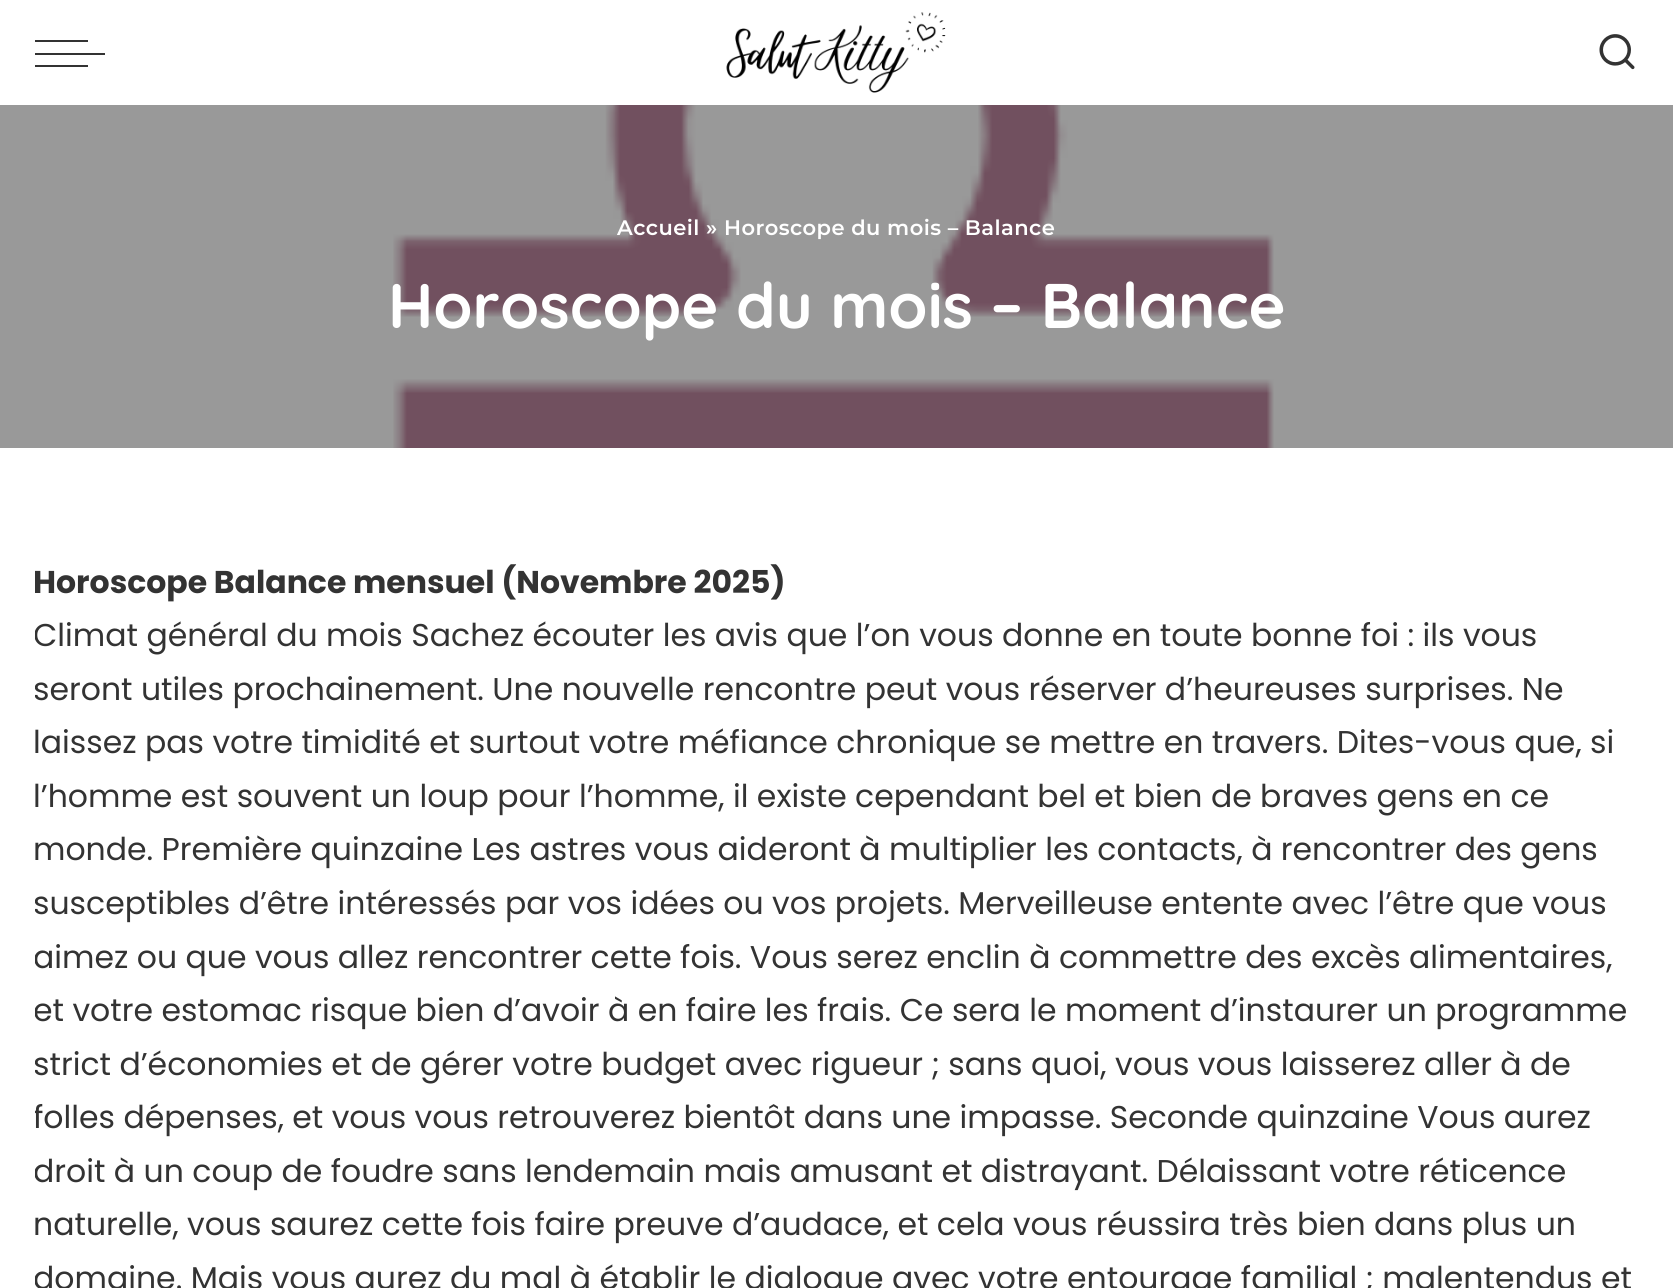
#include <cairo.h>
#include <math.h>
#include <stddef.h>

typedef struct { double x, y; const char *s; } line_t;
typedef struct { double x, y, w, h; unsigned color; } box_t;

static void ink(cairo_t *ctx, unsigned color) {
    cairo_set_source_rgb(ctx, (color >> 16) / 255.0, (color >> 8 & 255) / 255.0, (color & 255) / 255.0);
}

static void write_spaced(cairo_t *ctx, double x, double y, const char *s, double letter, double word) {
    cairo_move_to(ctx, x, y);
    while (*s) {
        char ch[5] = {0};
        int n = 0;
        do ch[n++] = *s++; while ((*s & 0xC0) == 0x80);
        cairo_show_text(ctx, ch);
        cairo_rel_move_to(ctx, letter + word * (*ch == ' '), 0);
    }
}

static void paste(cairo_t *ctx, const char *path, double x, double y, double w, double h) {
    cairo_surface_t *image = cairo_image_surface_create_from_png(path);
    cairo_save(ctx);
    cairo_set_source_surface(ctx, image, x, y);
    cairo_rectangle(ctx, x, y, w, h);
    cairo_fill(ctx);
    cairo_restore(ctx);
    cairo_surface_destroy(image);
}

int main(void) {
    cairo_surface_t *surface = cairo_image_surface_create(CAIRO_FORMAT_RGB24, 1673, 1288);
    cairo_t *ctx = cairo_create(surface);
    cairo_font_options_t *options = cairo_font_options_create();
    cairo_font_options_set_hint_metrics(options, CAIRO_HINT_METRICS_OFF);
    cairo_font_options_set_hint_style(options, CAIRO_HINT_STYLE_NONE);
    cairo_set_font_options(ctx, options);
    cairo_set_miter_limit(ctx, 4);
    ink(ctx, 0xFFFFFF);
    cairo_paint(ctx);
    {
        static const box_t items[] = {
            {0, 105, 1673, 343, 0x999999},
            {35, 53, 70, 2, 0x333333},
            {35, 40, 53, 2, 0x333333},
            {35, 65, 53, 2, 0x333333},
        };
        for (size_t i = 0; i < sizeof items / sizeof *items; i++) {
            ink(ctx, items[i].color);
            cairo_rectangle(ctx, items[i].x, items[i].y, items[i].w, items[i].h);
            cairo_fill(ctx);
        }
    }
    paste(ctx, "media/1.png", 726, 12, 220, 81);
    paste(ctx, "media/2.png", 1599, 34, 36, 36);
    paste(ctx, "media/3.png", 393, 105, 881, 343);
    cairo_select_font_face(ctx, "Montserrat SemiBold", CAIRO_FONT_SLANT_NORMAL, CAIRO_FONT_WEIGHT_NORMAL);
    cairo_set_font_size(ctx, 21);
    ink(ctx, 0xFFFFFF);
    write_spaced(ctx, 617, 235, "Accueil » Horoscope du mois – Balance", 0.45, 0);
    cairo_select_font_face(ctx, "Quicksand", CAIRO_FONT_SLANT_NORMAL, CAIRO_FONT_WEIGHT_BOLD);
    cairo_set_font_size(ctx, 63);
    cairo_move_to(ctx, 388, 328);
    cairo_show_text(ctx, "Horoscope du mois – Balance");
    cairo_save(ctx);
    cairo_rectangle(ctx, 35, 501, 1603, 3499);
    cairo_clip(ctx);
    cairo_select_font_face(ctx, "Poppins", CAIRO_FONT_SLANT_NORMAL, CAIRO_FONT_WEIGHT_BOLD);
    cairo_set_font_size(ctx, 31.5);
    ink(ctx, 0x333333);
    cairo_move_to(ctx, 33, 593);
    cairo_show_text(ctx, "Horoscope Balance mensuel (Novembre 2025)");
    cairo_select_font_face(ctx, "Poppins", CAIRO_FONT_SLANT_NORMAL, CAIRO_FONT_WEIGHT_NORMAL);
    cairo_move_to(ctx, 33, 646);
    cairo_show_text(ctx, "Climat général du mois Sachez écouter les avis que l’on vous donne en toute bonne foi : ils vous");
    cairo_move_to(ctx, 33, 700);
    cairo_show_text(ctx, "seront utiles prochainement. Une nouvelle rencontre peut vous réserver d’heureuses surprises. Ne");
    cairo_restore(ctx);
    cairo_select_font_face(ctx, "Poppins", CAIRO_FONT_SLANT_NORMAL, CAIRO_FONT_WEIGHT_NORMAL);
    cairo_set_font_size(ctx, 31.5);
    ink(ctx, 0x333333);
    {
        static const line_t items[] = {
            {33, 753, "laissez pas votre timidité et surtout votre méfiance chronique se mettre en travers. Dites-vous que, si"},
            {33, 807, "l’homme est souvent un loup pour l’homme, il existe cependant bel et bien de braves gens en ce"},
            {33, 860, "monde. Première quinzaine Les astres vous aideront à multiplier les contacts, à rencontrer des gens"},
        };
        for (size_t i = 0; i < sizeof items / sizeof *items; i++) {
            cairo_move_to(ctx, items[i].x, items[i].y);
            cairo_show_text(ctx, items[i].s);
        }
    }
    cairo_save(ctx);
    cairo_rectangle(ctx, 35, 501, 1603, 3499);
    cairo_clip(ctx);
    {
        static const line_t items[] = {
            {33, 914, "susceptibles d’être intéressés par vos idées ou vos projets. Merveilleuse entente avec l’être que vous"},
            {33, 968, "aimez ou que vous allez rencontrer cette fois. Vous serez enclin à commettre des excès alimentaires,"},
            {33, 1021, "et votre estomac risque bien d’avoir à en faire les frais. Ce sera le moment d’instaurer un programme"},
            {33, 1075, "strict d’économies et de gérer votre budget avec rigueur ; sans quoi, vous vous laisserez aller à de"},
            {33, 1128, "folles dépenses, et vous vous retrouverez bientôt dans une impasse. Seconde quinzaine Vous aurez"},
            {33, 1182, "droit à un coup de foudre sans lendemain mais amusant et distrayant. Délaissant votre réticence"},
        };
        for (size_t i = 0; i < sizeof items / sizeof *items; i++) {
            cairo_move_to(ctx, items[i].x, items[i].y);
            cairo_show_text(ctx, items[i].s);
        }
    }
    cairo_restore(ctx);
    cairo_move_to(ctx, 33, 1235);
    cairo_show_text(ctx, "naturelle, vous saurez cette fois faire preuve d’audace, et cela vous réussira très bien dans plus un");
    cairo_save(ctx);
    cairo_rectangle(ctx, 35, 501, 1603, 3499);
    cairo_clip(ctx);
    cairo_move_to(ctx, 33, 1289);
    cairo_show_text(ctx, "domaine. Mais vous aurez du mal à établir le dialogue avec votre entourage familial ; malentendus et");
    cairo_restore(ctx);
    cairo_surface_write_to_png(surface, "image.png");
    cairo_font_options_destroy(options);
    cairo_destroy(ctx);
    cairo_surface_destroy(surface);
    return 0;
}
